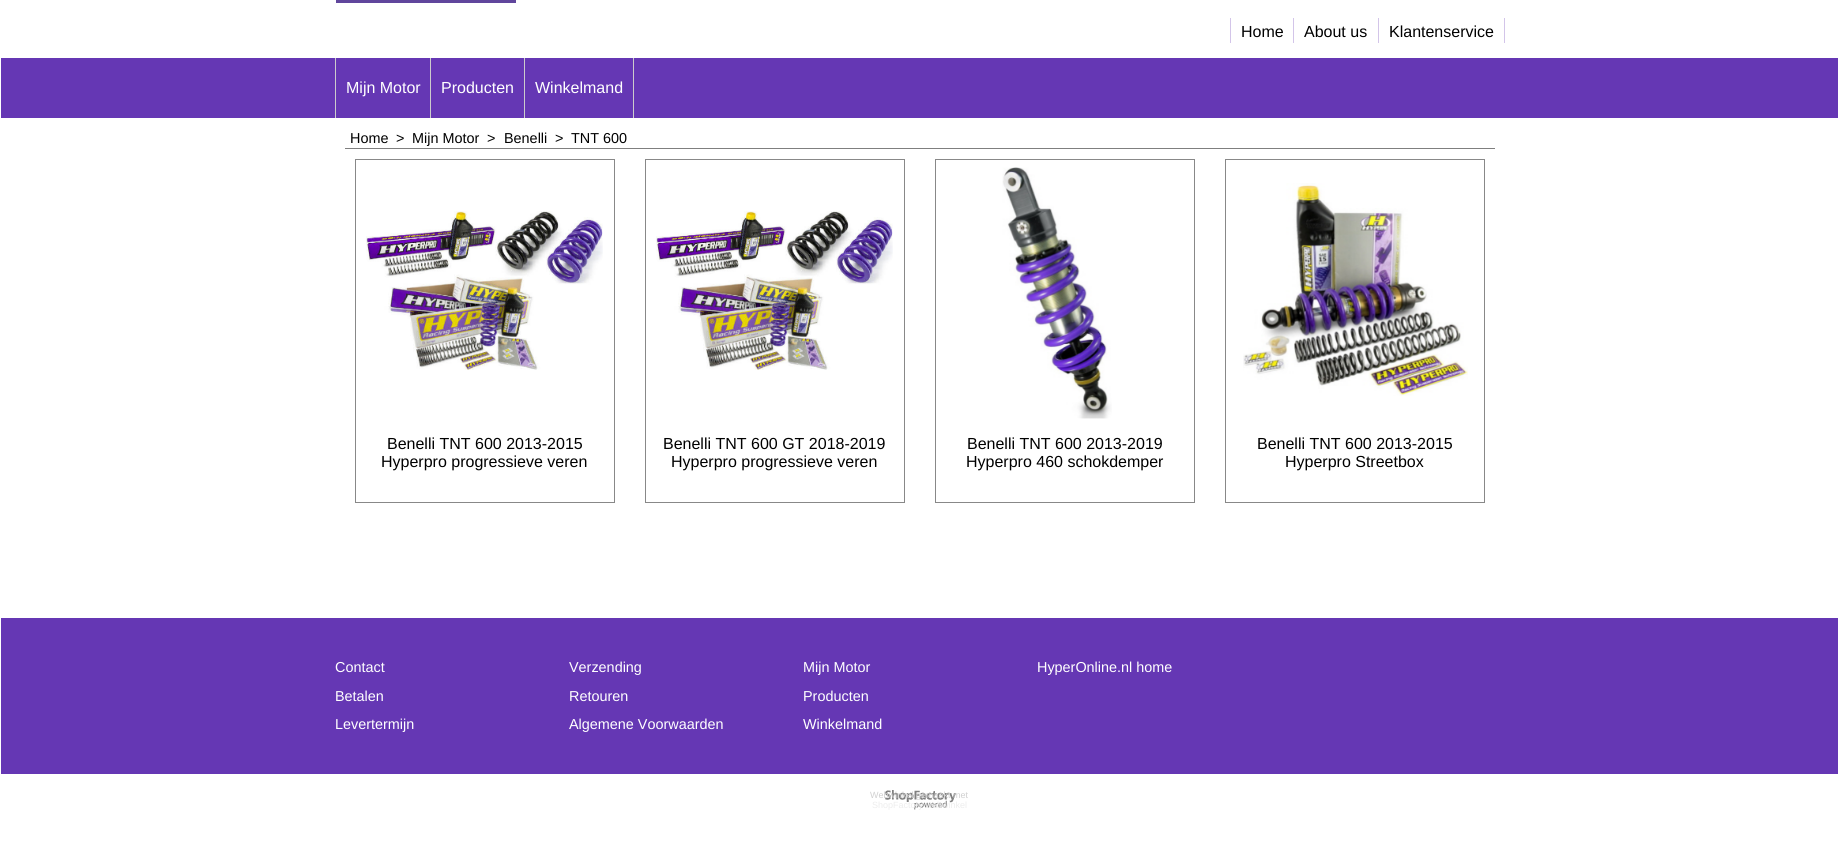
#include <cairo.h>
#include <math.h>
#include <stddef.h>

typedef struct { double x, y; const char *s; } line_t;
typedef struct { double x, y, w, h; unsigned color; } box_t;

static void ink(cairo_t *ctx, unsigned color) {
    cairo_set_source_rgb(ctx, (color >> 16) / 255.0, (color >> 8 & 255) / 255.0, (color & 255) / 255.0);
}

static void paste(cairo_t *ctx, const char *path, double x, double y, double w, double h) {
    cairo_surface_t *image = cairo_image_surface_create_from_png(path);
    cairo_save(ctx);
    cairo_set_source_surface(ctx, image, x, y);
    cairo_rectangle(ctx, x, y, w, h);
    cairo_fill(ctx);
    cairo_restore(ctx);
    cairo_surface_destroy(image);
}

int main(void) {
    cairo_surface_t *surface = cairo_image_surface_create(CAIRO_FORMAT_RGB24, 1839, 860);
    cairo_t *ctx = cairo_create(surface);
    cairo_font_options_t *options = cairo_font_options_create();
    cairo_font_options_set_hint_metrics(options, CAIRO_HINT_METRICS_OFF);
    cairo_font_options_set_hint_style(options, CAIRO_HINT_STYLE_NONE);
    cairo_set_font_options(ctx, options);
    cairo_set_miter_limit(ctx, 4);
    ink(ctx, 0xFFFFFF);
    cairo_paint(ctx);
    ink(ctx, 0x60469C);
    cairo_rectangle(ctx, 336, 0, 180, 3);
    cairo_fill(ctx);
    ink(ctx, 0xD3C5E9);
    cairo_rectangle(ctx, 1230, 18, 1, 25);
    cairo_fill(ctx);
    cairo_select_font_face(ctx, "Liberation Sans", CAIRO_FONT_SLANT_NORMAL, CAIRO_FONT_WEIGHT_NORMAL);
    cairo_set_font_size(ctx, 16);
    ink(ctx, 0x000000);
    cairo_move_to(ctx, 1241, 37);
    cairo_show_text(ctx, "Home");
    ink(ctx, 0xD3C5E9);
    cairo_rectangle(ctx, 1293, 18, 1, 25);
    cairo_fill(ctx);
    ink(ctx, 0x000000);
    cairo_move_to(ctx, 1304, 37);
    cairo_show_text(ctx, "About us");
    ink(ctx, 0xD3C5E9);
    cairo_rectangle(ctx, 1378, 18, 1, 25);
    cairo_fill(ctx);
    ink(ctx, 0x000000);
    cairo_move_to(ctx, 1389, 37);
    cairo_show_text(ctx, "Klantenservice");
    {
        static const box_t items[] = {
            {1504, 18, 1, 25, 0xD3C5E9},
            {1, 58, 1837, 60, 0x6537B4},
            {335, 58, 1, 60, 0xCCCCCC},
        };
        for (size_t i = 0; i < sizeof items / sizeof *items; i++) {
            ink(ctx, items[i].color);
            cairo_rectangle(ctx, items[i].x, items[i].y, items[i].w, items[i].h);
            cairo_fill(ctx);
        }
    }
    ink(ctx, 0xFFFFFF);
    cairo_move_to(ctx, 346, 93);
    cairo_show_text(ctx, "Mijn Motor");
    ink(ctx, 0xCCCCCC);
    cairo_rectangle(ctx, 430, 58, 1, 60);
    cairo_fill(ctx);
    ink(ctx, 0xFFFFFF);
    cairo_move_to(ctx, 441, 93);
    cairo_show_text(ctx, "Producten");
    ink(ctx, 0xCCCCCC);
    cairo_rectangle(ctx, 524, 58, 1, 60);
    cairo_fill(ctx);
    ink(ctx, 0xFFFFFF);
    cairo_move_to(ctx, 535, 93);
    cairo_show_text(ctx, "Winkelmand");
    ink(ctx, 0xCCCCCC);
    cairo_rectangle(ctx, 633, 58, 1, 60);
    cairo_fill(ctx);
    ink(ctx, 0x7F7F7F);
    cairo_rectangle(ctx, 345, 148, 1150, 1);
    cairo_fill(ctx);
    cairo_set_font_size(ctx, 14.4);
    ink(ctx, 0x000000);
    {
        static const line_t items[] = {
            {350, 143, "Home"},
            {396, 143, ">"},
            {412, 143, "Mijn Motor"},
            {487, 143, ">"},
            {504, 143, "Benelli"},
            {555, 143, ">"},
            {571, 143, "TNT 600"},
        };
        for (size_t i = 0; i < sizeof items / sizeof *items; i++) {
            cairo_move_to(ctx, items[i].x, items[i].y);
            cairo_show_text(ctx, items[i].s);
        }
    }
    cairo_rectangle(ctx, 355.5, 159.5, 259, 343);
    ink(ctx, 0x888888);
    cairo_set_line_width(ctx, 1);
    cairo_stroke(ctx);
    paste(ctx, "media/1.png", 366, 211, 237, 159);
    cairo_set_font_size(ctx, 16);
    ink(ctx, 0x000000);
    cairo_move_to(ctx, 387, 449);
    cairo_show_text(ctx, "Benelli TNT 600 2013-2015");
    cairo_move_to(ctx, 381, 467);
    cairo_show_text(ctx, "Hyperpro progressieve veren");
    cairo_rectangle(ctx, 645.5, 159.5, 259, 343);
    ink(ctx, 0x888888);
    cairo_stroke(ctx);
    paste(ctx, "media/2.png", 656, 211, 237, 159);
    ink(ctx, 0x000000);
    cairo_move_to(ctx, 663, 449);
    cairo_show_text(ctx, "Benelli TNT 600 GT 2018-2019");
    cairo_move_to(ctx, 671, 467);
    cairo_show_text(ctx, "Hyperpro progressieve veren");
    cairo_rectangle(ctx, 935.5, 159.5, 259, 343);
    ink(ctx, 0x888888);
    cairo_stroke(ctx);
    paste(ctx, "media/3.png", 1002, 167, 110, 252);
    ink(ctx, 0x000000);
    cairo_move_to(ctx, 967, 449);
    cairo_show_text(ctx, "Benelli TNT 600 2013-2019");
    cairo_move_to(ctx, 966, 467);
    cairo_show_text(ctx, "Hyperpro 460 schokdemper");
    cairo_rectangle(ctx, 1225.5, 159.5, 259, 343);
    ink(ctx, 0x888888);
    cairo_stroke(ctx);
    paste(ctx, "media/4.png", 1243, 183, 225, 213);
    ink(ctx, 0x000000);
    cairo_move_to(ctx, 1257, 449);
    cairo_show_text(ctx, "Benelli TNT 600 2013-2015");
    cairo_move_to(ctx, 1285, 467);
    cairo_show_text(ctx, "Hyperpro Streetbox");
    ink(ctx, 0x6537B4);
    cairo_rectangle(ctx, 1, 618, 1837, 156);
    cairo_fill(ctx);
    cairo_set_font_size(ctx, 14.4);
    ink(ctx, 0xFFFFFF);
    {
        static const line_t items[] = {
            {335, 672, "Contact"},
            {335, 701, "Betalen"},
            {335, 729, "Levertermijn"},
            {569, 672, "Verzending"},
            {569, 701, "Retouren"},
            {569, 729, "Algemene Voorwaarden"},
            {803, 672, "Mijn Motor"},
            {803, 701, "Producten"},
            {803, 729, "Winkelmand"},
            {1037, 672, "HyperOnline.nl home"},
        };
        for (size_t i = 0; i < sizeof items / sizeof *items; i++) {
            cairo_move_to(ctx, items[i].x, items[i].y);
            cairo_show_text(ctx, items[i].s);
        }
    }
    paste(ctx, "media/5.png", 885, 790, 71, 20);
    cairo_set_font_size(ctx, 9);
    ink(ctx, 0xD0D0D0);
    cairo_move_to(ctx, 870, 798);
    cairo_show_text(ctx, "Webwinkel gemaakt met");
    ink(ctx, 0xEDEDED);
    cairo_move_to(ctx, 872, 808);
    cairo_show_text(ctx, "ShopFactory webwinkel");
    cairo_surface_write_to_png(surface, "image.png");
    cairo_font_options_destroy(options);
    cairo_destroy(ctx);
    cairo_surface_destroy(surface);
    return 0;
}
